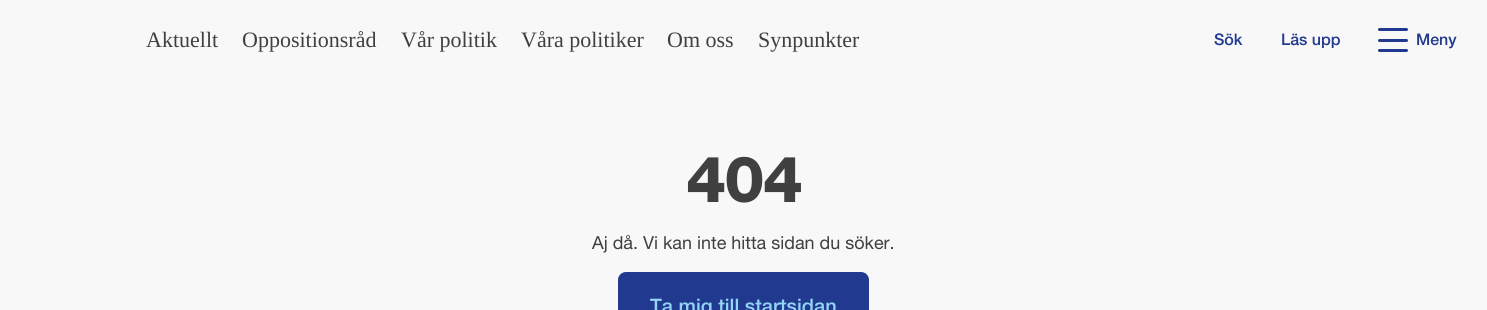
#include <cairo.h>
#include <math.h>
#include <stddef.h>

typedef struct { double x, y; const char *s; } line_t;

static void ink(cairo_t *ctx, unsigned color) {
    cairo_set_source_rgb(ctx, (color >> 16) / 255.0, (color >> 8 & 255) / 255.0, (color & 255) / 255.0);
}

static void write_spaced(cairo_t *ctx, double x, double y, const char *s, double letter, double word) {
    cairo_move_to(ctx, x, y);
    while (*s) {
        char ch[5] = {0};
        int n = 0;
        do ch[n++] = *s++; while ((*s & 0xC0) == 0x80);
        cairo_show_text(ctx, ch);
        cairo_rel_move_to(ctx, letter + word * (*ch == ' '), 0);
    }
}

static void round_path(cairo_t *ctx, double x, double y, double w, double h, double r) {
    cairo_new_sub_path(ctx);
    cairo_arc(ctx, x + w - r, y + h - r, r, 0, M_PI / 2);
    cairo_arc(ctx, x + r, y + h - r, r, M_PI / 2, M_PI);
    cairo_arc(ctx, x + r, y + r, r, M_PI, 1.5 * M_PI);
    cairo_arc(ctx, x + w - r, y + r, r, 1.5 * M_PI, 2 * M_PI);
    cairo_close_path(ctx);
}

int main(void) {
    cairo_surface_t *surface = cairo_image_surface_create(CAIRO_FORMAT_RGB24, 1487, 310);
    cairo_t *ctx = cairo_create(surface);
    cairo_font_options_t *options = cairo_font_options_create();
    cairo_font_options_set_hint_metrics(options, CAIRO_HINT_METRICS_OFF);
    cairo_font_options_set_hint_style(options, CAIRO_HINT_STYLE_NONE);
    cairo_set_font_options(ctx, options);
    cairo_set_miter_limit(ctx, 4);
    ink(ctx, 0xF8F8F8);
    cairo_paint(ctx);
    cairo_select_font_face(ctx, "Liberation Serif", CAIRO_FONT_SLANT_NORMAL, CAIRO_FONT_WEIGHT_NORMAL);
    cairo_set_font_size(ctx, 22);
    ink(ctx, 0x404040);
    {
        static const line_t items[] = {
            {146, 47, "Aktuellt"},
            {242, 47, "Oppositionsråd"},
            {401, 47, "Vår politik"},
            {521, 47, "Våra politiker"},
            {667, 47, "Om oss"},
        };
        for (size_t i = 0; i < sizeof items / sizeof *items; i++) {
            cairo_move_to(ctx, items[i].x, items[i].y);
            cairo_show_text(ctx, items[i].s);
        }
    }
    cairo_save(ctx);
    cairo_rectangle(ctx, 122, 0, 737, 80);
    cairo_clip(ctx);
    cairo_move_to(ctx, 758, 47);
    cairo_show_text(ctx, "Synpunkter");
    cairo_restore(ctx);
    cairo_select_font_face(ctx, "Helvetica Neue Medium", CAIRO_FONT_SLANT_NORMAL, CAIRO_FONT_WEIGHT_NORMAL);
    cairo_set_font_size(ctx, 16);
    ink(ctx, 0x213A8F);
    cairo_move_to(ctx, 1214, 45);
    cairo_show_text(ctx, "Sök");
    cairo_move_to(ctx, 1281, 45);
    cairo_show_text(ctx, "Läs upp");
    round_path(ctx, 1378, 28, 30, 3, 1.5);
    cairo_fill(ctx);
    round_path(ctx, 1378, 39, 30, 3, 1.5);
    cairo_fill(ctx);
    round_path(ctx, 1378, 49, 30, 3, 1.5);
    cairo_fill(ctx);
    cairo_move_to(ctx, 1416, 45);
    cairo_show_text(ctx, "Meny");
    cairo_select_font_face(ctx, "Helvetica Neue", CAIRO_FONT_SLANT_NORMAL, CAIRO_FONT_WEIGHT_BOLD);
    cairo_set_font_size(ctx, 64);
    ink(ctx, 0x404040);
    write_spaced(ctx, 686, 202, "404", -2, 0);
    cairo_select_font_face(ctx, "Helvetica Neue", CAIRO_FONT_SLANT_NORMAL, CAIRO_FONT_WEIGHT_NORMAL);
    cairo_set_font_size(ctx, 18);
    cairo_move_to(ctx, 592, 249);
    cairo_show_text(ctx, "Aj då. Vi kan inte hitta sidan du söker.");
    ink(ctx, 0x213A8F);
    round_path(ctx, 618, 272, 251, 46, 8);
    cairo_fill(ctx);
    cairo_select_font_face(ctx, "Helvetica Neue Medium", CAIRO_FONT_SLANT_NORMAL, CAIRO_FONT_WEIGHT_NORMAL);
    cairo_set_font_size(ctx, 20);
    ink(ctx, 0x93D5F6);
    cairo_move_to(ctx, 650, 313);
    cairo_show_text(ctx, "Ta mig till startsidan");
    cairo_surface_write_to_png(surface, "image.png");
    cairo_font_options_destroy(options);
    cairo_destroy(ctx);
    cairo_surface_destroy(surface);
    return 0;
}
